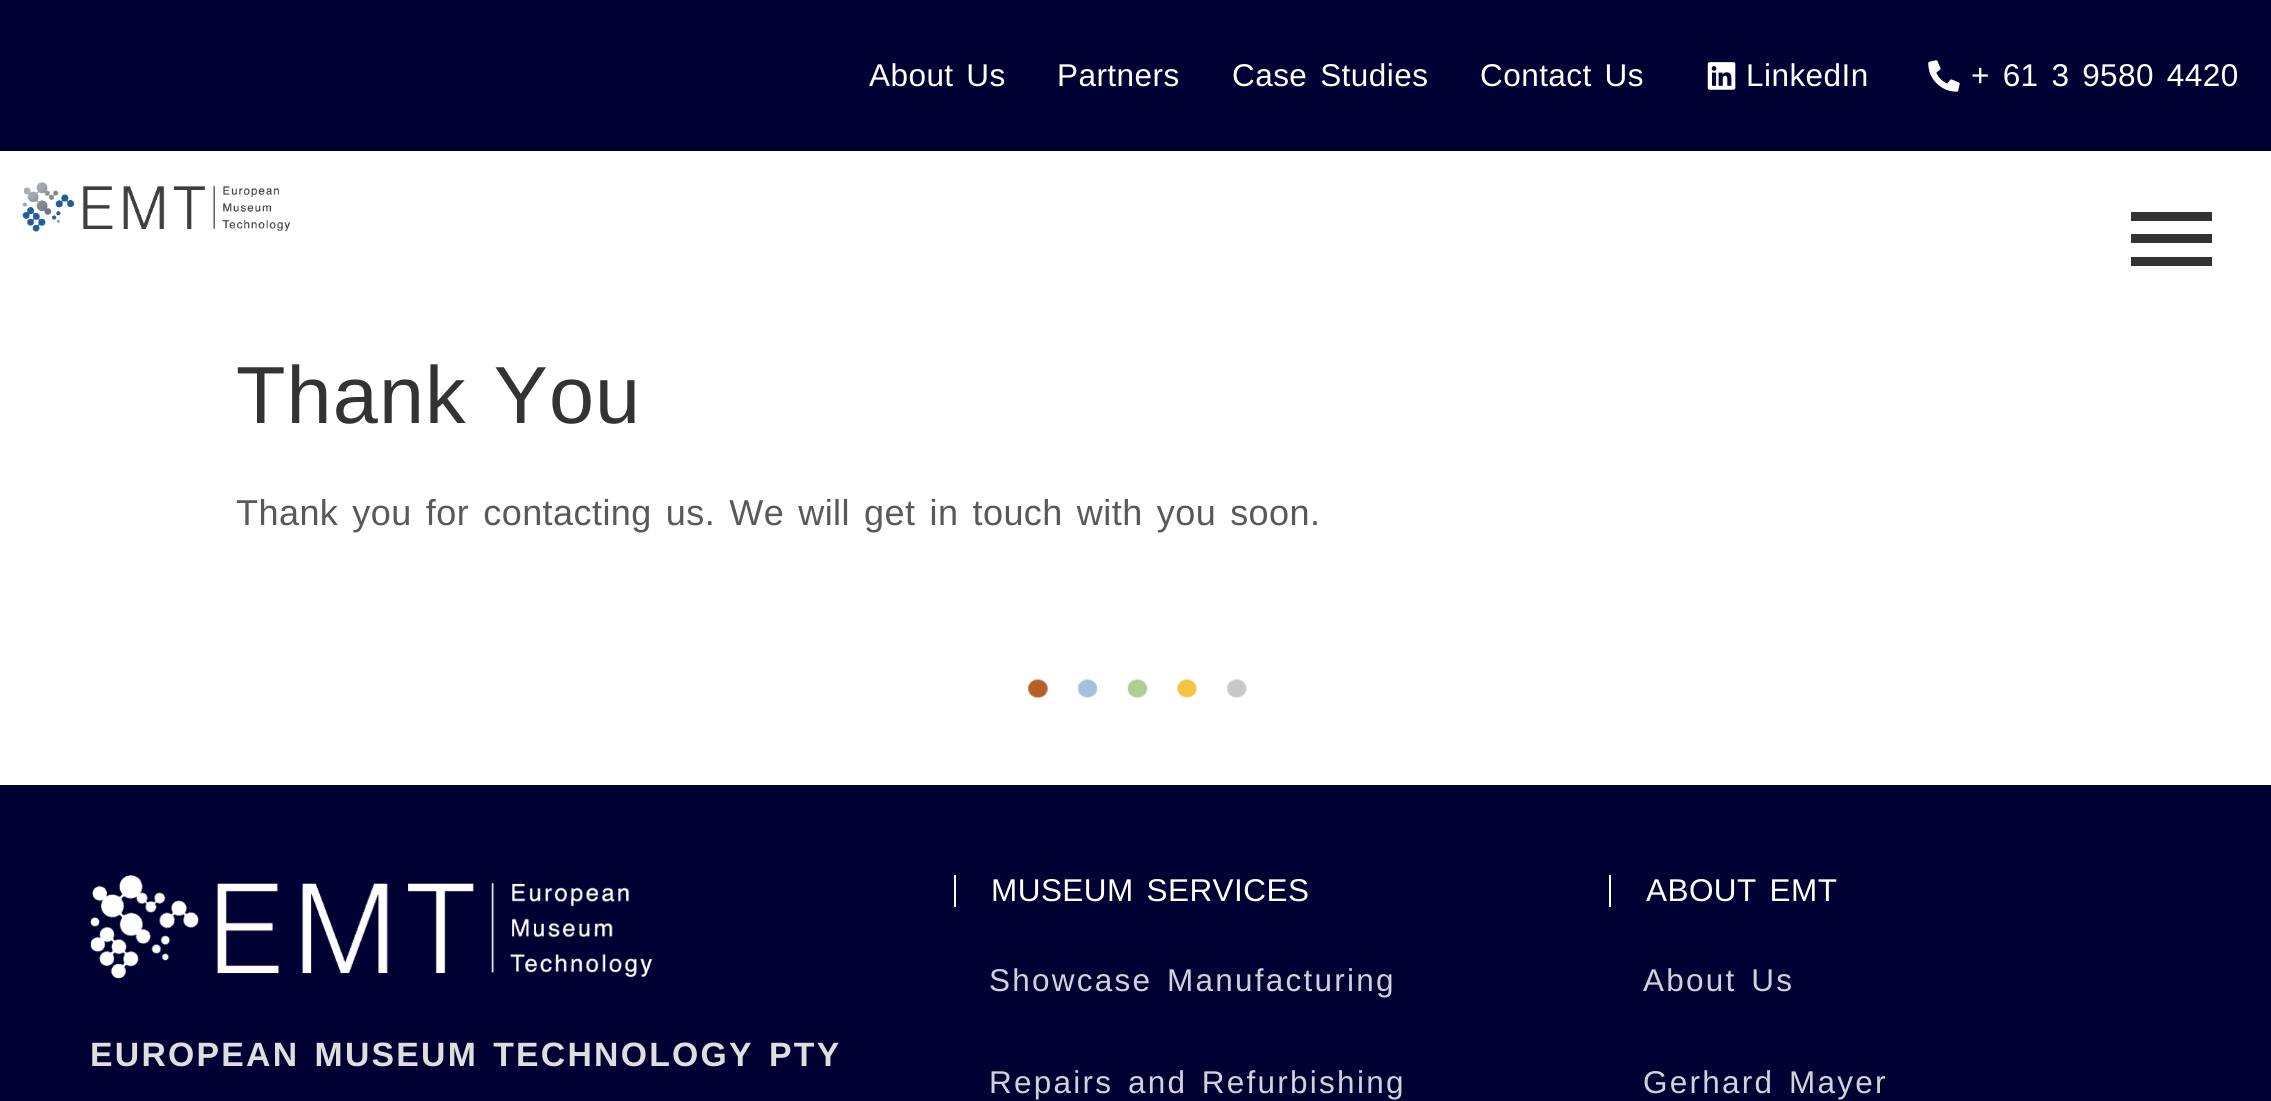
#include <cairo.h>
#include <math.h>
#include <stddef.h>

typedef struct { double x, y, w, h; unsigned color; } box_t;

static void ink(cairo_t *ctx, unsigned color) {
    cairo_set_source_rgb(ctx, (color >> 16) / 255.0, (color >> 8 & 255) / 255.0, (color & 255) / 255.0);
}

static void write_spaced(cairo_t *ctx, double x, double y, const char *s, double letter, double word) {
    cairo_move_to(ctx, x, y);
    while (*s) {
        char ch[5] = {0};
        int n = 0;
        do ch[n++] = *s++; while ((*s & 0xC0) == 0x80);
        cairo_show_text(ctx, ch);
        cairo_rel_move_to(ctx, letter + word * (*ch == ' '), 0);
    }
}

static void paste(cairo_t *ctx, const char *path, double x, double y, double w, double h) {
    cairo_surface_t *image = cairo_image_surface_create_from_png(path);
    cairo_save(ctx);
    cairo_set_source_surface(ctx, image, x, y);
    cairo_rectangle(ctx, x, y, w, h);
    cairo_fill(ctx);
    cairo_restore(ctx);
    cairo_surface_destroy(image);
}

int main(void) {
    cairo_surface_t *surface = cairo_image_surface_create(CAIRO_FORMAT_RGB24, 2271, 1101);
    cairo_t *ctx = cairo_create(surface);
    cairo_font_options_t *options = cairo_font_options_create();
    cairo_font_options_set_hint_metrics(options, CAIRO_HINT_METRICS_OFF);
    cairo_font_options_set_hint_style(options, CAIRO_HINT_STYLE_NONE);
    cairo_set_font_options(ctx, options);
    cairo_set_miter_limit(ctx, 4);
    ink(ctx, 0xFFFFFF);
    cairo_paint(ctx);
    ink(ctx, 0x000033);
    cairo_rectangle(ctx, 0, 0, 2271, 151);
    cairo_fill(ctx);
    cairo_select_font_face(ctx, "Liberation Sans", CAIRO_FONT_SLANT_NORMAL, CAIRO_FONT_WEIGHT_NORMAL);
    cairo_set_font_size(ctx, 31.5);
    ink(ctx, 0xFFFFFF);
    write_spaced(ctx, 869, 86, "About Us", 0.45, 3.6);
    write_spaced(ctx, 1057, 86, "Partners", 0.45, 0);
    write_spaced(ctx, 1232, 86, "Case Studies", 0.45, 3.6);
    write_spaced(ctx, 1480, 86, "Contact Us", 0.45, 3.6);
    paste(ctx, "media/1.png", 1707, 62, 29, 28);
    write_spaced(ctx, 1746, 86, "LinkedIn", 0.45, 0);
    paste(ctx, "media/2.png", 1928, 60, 32, 32);
    write_spaced(ctx, 1971, 86, "+ 61 3 9580 4420", 0.45, 3.6);
    paste(ctx, "media/3.png", 22, 182, 269, 50);
    {
        static const box_t items[] = {
            {2131, 212, 81, 9, 0x333333},
            {2131, 234, 81, 9, 0x333333},
            {2131, 257, 81, 9, 0x333333},
        };
        for (size_t i = 0; i < sizeof items / sizeof *items; i++) {
            ink(ctx, items[i].color);
            cairo_rectangle(ctx, items[i].x, items[i].y, items[i].w, items[i].h);
            cairo_fill(ctx);
        }
    }
    cairo_set_font_size(ctx, 81);
    write_spaced(ctx, 236, 423, "Thank You", 1.1, 3.6);
    cairo_set_font_size(ctx, 36);
    ink(ctx, 0x595959);
    write_spaced(ctx, 236, 525, "Thank you for contacting us. We will get in touch with you soon.", 0.45, 3.6);
    paste(ctx, "media/4.png", 1028, 679, 219, 19);
    ink(ctx, 0x000033);
    cairo_rectangle(ctx, 0, 785, 2271, 316);
    cairo_fill(ctx);
    paste(ctx, "media/5.png", 90, 875, 563, 104);
    cairo_select_font_face(ctx, "Liberation Sans", CAIRO_FONT_SLANT_NORMAL, CAIRO_FONT_WEIGHT_BOLD);
    cairo_set_font_size(ctx, 33.75);
    ink(ctx, 0xDEDEDE);
    write_spaced(ctx, 90, 1066, "EUROPEAN MUSEUM TECHNOLOGY PTY", 2.25, 3.6);
    ink(ctx, 0xFFFFFF);
    cairo_rectangle(ctx, 954, 875, 2, 32);
    cairo_fill(ctx);
    cairo_select_font_face(ctx, "Liberation Sans", CAIRO_FONT_SLANT_NORMAL, CAIRO_FONT_WEIGHT_NORMAL);
    cairo_set_font_size(ctx, 31.5);
    write_spaced(ctx, 991, 901, "MUSEUM SERVICES", 0.45, 3.6);
    ink(ctx, 0xD1D1DA);
    write_spaced(ctx, 989, 991, "Showcase Manufacturing", 2.25, 3.6);
    write_spaced(ctx, 989, 1093, "Repairs and Refurbishing", 2.25, 3.6);
    ink(ctx, 0xFFFFFF);
    cairo_rectangle(ctx, 1609, 875, 2, 32);
    cairo_fill(ctx);
    write_spaced(ctx, 1646, 901, "ABOUT EMT", 0.45, 3.6);
    ink(ctx, 0xD1D1DA);
    write_spaced(ctx, 1643, 991, "About Us", 2.25, 3.6);
    write_spaced(ctx, 1643, 1093, "Gerhard Mayer", 2.25, 3.6);
    cairo_surface_write_to_png(surface, "image.png");
    cairo_font_options_destroy(options);
    cairo_destroy(ctx);
    cairo_surface_destroy(surface);
    return 0;
}
